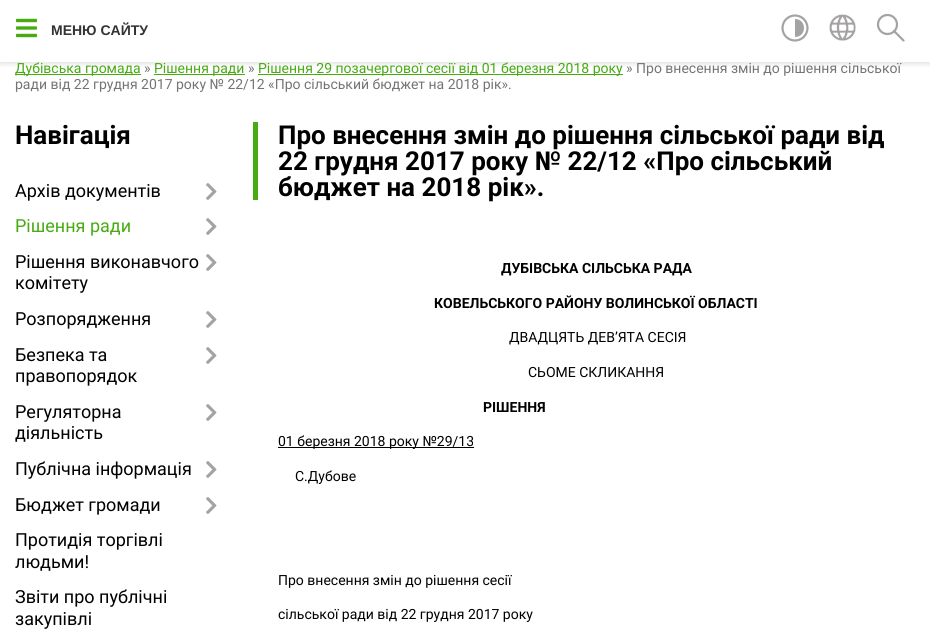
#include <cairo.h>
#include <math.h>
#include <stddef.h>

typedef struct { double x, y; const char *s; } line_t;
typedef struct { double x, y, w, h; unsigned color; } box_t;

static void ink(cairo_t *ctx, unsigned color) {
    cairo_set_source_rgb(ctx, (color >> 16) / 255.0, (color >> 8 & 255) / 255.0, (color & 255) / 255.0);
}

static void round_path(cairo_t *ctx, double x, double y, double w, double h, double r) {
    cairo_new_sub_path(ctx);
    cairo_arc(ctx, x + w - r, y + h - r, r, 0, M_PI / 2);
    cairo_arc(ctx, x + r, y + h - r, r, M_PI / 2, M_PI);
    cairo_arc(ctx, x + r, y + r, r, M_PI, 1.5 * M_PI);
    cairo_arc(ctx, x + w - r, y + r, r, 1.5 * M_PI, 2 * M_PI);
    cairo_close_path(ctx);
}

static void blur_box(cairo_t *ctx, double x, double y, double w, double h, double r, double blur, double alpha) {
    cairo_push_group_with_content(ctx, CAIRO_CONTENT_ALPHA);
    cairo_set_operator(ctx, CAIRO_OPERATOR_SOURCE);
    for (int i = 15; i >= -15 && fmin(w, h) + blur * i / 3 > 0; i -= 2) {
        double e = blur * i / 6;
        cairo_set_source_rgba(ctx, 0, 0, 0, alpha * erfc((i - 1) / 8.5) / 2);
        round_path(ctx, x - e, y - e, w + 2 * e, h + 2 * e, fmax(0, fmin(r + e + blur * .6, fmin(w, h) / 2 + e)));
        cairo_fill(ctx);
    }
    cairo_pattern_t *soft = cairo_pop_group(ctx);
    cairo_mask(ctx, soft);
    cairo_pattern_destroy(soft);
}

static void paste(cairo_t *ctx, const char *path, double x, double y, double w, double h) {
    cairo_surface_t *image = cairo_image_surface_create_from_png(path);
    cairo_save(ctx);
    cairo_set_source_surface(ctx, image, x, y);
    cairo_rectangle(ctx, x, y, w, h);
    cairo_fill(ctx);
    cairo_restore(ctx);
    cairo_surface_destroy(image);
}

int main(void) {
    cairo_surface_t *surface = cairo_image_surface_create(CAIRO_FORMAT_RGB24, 930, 641);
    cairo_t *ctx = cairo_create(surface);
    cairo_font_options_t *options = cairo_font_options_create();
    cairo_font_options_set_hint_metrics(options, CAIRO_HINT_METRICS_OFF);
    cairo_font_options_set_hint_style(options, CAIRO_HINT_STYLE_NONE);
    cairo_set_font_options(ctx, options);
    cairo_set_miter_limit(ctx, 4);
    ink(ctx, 0xFFFFFF);
    cairo_paint(ctx);
    {
        static const box_t items[] = {
            {15, 74, 126, 1, 0x47AB11},
            {154, 74, 91, 1, 0x47AB11},
            {258, 74, 365, 1, 0x47AB11},
        };
        for (size_t i = 0; i < sizeof items / sizeof *items; i++) {
            ink(ctx, items[i].color);
            cairo_rectangle(ctx, items[i].x, items[i].y, items[i].w, items[i].h);
            cairo_fill(ctx);
        }
    }
    cairo_save(ctx);
    cairo_rectangle(ctx, 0, 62, 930, 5);
    cairo_clip(ctx);
    ink(ctx, 0x000000);
    blur_box(ctx, 0, 1, 930, 62, 0, 3.5, 0.15);
    cairo_restore(ctx);
    paste(ctx, "media/1.png", 16, 18, 21, 20);
    cairo_select_font_face(ctx, "Liberation Sans", CAIRO_FONT_SLANT_NORMAL, CAIRO_FONT_WEIGHT_BOLD);
    cairo_set_font_size(ctx, 14);
    ink(ctx, 0x333333);
    cairo_move_to(ctx, 51, 35);
    cairo_show_text(ctx, "МЕНЮ САЙТУ");
    cairo_new_path(ctx);
    cairo_arc(ctx, 795, 28, 12.5, 0, 2 * M_PI);
    ink(ctx, 0xA4A2A2);
    cairo_set_line_width(ctx, 2.2);
    cairo_stroke(ctx);
    cairo_set_fill_rule(ctx, CAIRO_FILL_RULE_EVEN_ODD);
    cairo_new_path(ctx);
    cairo_move_to(ctx, 795, 19);
    cairo_curve_to(ctx, 807, 19, 807, 37, 795, 37);
    cairo_close_path(ctx);
    cairo_fill(ctx);
    paste(ctx, "media/2.png", 829, 14, 27, 27);
    cairo_arc(ctx, 887.5, 24.5, 9.5, 0, 2 * M_PI);
    cairo_stroke(ctx);
    cairo_new_path(ctx);
    cairo_move_to(ctx, 894, 31);
    cairo_line_to(ctx, 903.5, 40.5);
    cairo_set_line_cap(ctx, CAIRO_LINE_CAP_ROUND);
    cairo_set_line_join(ctx, CAIRO_LINE_JOIN_ROUND);
    cairo_stroke(ctx);
    cairo_select_font_face(ctx, "Roboto", CAIRO_FONT_SLANT_NORMAL, CAIRO_FONT_WEIGHT_NORMAL);
    ink(ctx, 0x47AB11);
    cairo_move_to(ctx, 15, 73);
    cairo_show_text(ctx, "Дубівська громада");
    ink(ctx, 0x747474);
    cairo_move_to(ctx, 144, 73);
    cairo_show_text(ctx, "»");
    ink(ctx, 0x47AB11);
    cairo_move_to(ctx, 154, 73);
    cairo_show_text(ctx, "Рішення ради");
    ink(ctx, 0x747474);
    cairo_move_to(ctx, 248, 73);
    cairo_show_text(ctx, "»");
    ink(ctx, 0x47AB11);
    cairo_move_to(ctx, 258, 73);
    cairo_show_text(ctx, "Рішення 29 позачергової сесії від 01 березня 2018 року");
    ink(ctx, 0x747474);
    cairo_move_to(ctx, 626, 73);
    cairo_show_text(ctx, "» Про внесення змін до рішення сільської");
    cairo_move_to(ctx, 15, 89);
    cairo_show_text(ctx, "ради від 22 грудня 2017 року № 22/12 «Про сільський бюджет на 2018 рік».");
    cairo_select_font_face(ctx, "Roboto", CAIRO_FONT_SLANT_NORMAL, CAIRO_FONT_WEIGHT_BOLD);
    cairo_set_font_size(ctx, 26);
    ink(ctx, 0x000000);
    cairo_move_to(ctx, 15, 144);
    cairo_show_text(ctx, "Навігація");
    cairo_select_font_face(ctx, "Roboto", CAIRO_FONT_SLANT_NORMAL, CAIRO_FONT_WEIGHT_NORMAL);
    cairo_set_font_size(ctx, 18);
    cairo_move_to(ctx, 15, 197);
    cairo_show_text(ctx, "Архів документів");
    paste(ctx, "media/3.png", 206, 183, 11, 17);
    ink(ctx, 0x47AB11);
    cairo_move_to(ctx, 15, 232);
    cairo_show_text(ctx, "Рішення ради");
    paste(ctx, "media/3.png", 206, 218, 11, 17);
    ink(ctx, 0x000000);
    cairo_move_to(ctx, 15, 268);
    cairo_show_text(ctx, "Рішення виконавчого");
    cairo_move_to(ctx, 15, 289);
    cairo_show_text(ctx, "комітету");
    paste(ctx, "media/3.png", 206, 254, 11, 17);
    cairo_move_to(ctx, 15, 325);
    cairo_show_text(ctx, "Розпорядження");
    paste(ctx, "media/3.png", 206, 311, 11, 17);
    cairo_move_to(ctx, 15, 361);
    cairo_show_text(ctx, "Безпека та");
    cairo_move_to(ctx, 15, 382);
    cairo_show_text(ctx, "правопорядок");
    paste(ctx, "media/3.png", 206, 347, 11, 17);
    cairo_move_to(ctx, 15, 418);
    cairo_show_text(ctx, "Регуляторна");
    cairo_move_to(ctx, 15, 439);
    cairo_show_text(ctx, "діяльність");
    paste(ctx, "media/3.png", 206, 404, 11, 17);
    cairo_move_to(ctx, 15, 475);
    cairo_show_text(ctx, "Публічна інформація");
    paste(ctx, "media/3.png", 206, 461, 11, 17);
    cairo_move_to(ctx, 15, 511);
    cairo_show_text(ctx, "Бюджет громади");
    paste(ctx, "media/3.png", 206, 497, 11, 17);
    {
        static const line_t items[] = {
            {15, 546, "Протидія торгівлі"},
            {15, 568, "людьми!"},
            {15, 603, "Звіти про публічні"},
            {15, 625, "закупівлі"},
        };
        for (size_t i = 0; i < sizeof items / sizeof *items; i++) {
            cairo_move_to(ctx, items[i].x, items[i].y);
            cairo_show_text(ctx, items[i].s);
        }
    }
    ink(ctx, 0x47AB11);
    cairo_rectangle(ctx, 253, 122, 5, 78);
    cairo_fill(ctx);
    cairo_select_font_face(ctx, "Roboto", CAIRO_FONT_SLANT_NORMAL, CAIRO_FONT_WEIGHT_BOLD);
    cairo_set_font_size(ctx, 26);
    ink(ctx, 0x000000);
    {
        static const line_t items[] = {
            {278, 144, "Про внесення змін до рішення сільської ради від"},
            {278, 170, "22 грудня 2017 року № 22/12 «Про сільський"},
            {278, 196, "бюджет на 2018 рік»."},
        };
        for (size_t i = 0; i < sizeof items / sizeof *items; i++) {
            cairo_move_to(ctx, items[i].x, items[i].y);
            cairo_show_text(ctx, items[i].s);
        }
    }
    cairo_set_font_size(ctx, 14);
    cairo_move_to(ctx, 501, 273);
    cairo_show_text(ctx, "ДУБІВСЬКА СІЛЬСЬКА РАДА");
    cairo_move_to(ctx, 434, 308);
    cairo_show_text(ctx, "КОВЕЛЬСЬКОГО РАЙОНУ ВОЛИНСЬКОЇ ОБЛАСТІ");
    cairo_select_font_face(ctx, "Roboto", CAIRO_FONT_SLANT_NORMAL, CAIRO_FONT_WEIGHT_NORMAL);
    cairo_move_to(ctx, 509, 342);
    cairo_show_text(ctx, "ДВАДЦЯТЬ ДЕВ’ЯТА СЕСІЯ");
    cairo_move_to(ctx, 528, 377);
    cairo_show_text(ctx, "СЬОМЕ СКЛИКАННЯ");
    cairo_select_font_face(ctx, "Roboto", CAIRO_FONT_SLANT_NORMAL, CAIRO_FONT_WEIGHT_BOLD);
    cairo_move_to(ctx, 483, 412);
    cairo_show_text(ctx, "РІШЕННЯ");
    cairo_rectangle(ctx, 278, 447, 196, 1);
    cairo_fill(ctx);
    cairo_select_font_face(ctx, "Roboto", CAIRO_FONT_SLANT_NORMAL, CAIRO_FONT_WEIGHT_NORMAL);
    {
        static const line_t items[] = {
            {278, 446, "01 березня 2018 року №29/13"},
            {295, 481, "С.Дубове"},
            {278, 585, "Про внесення змін до рішення сесії"},
            {278, 619, "сільської ради від 22 грудня 2017 року"},
        };
        for (size_t i = 0; i < sizeof items / sizeof *items; i++) {
            cairo_move_to(ctx, items[i].x, items[i].y);
            cairo_show_text(ctx, items[i].s);
        }
    }
    cairo_surface_write_to_png(surface, "image.png");
    cairo_font_options_destroy(options);
    cairo_destroy(ctx);
    cairo_surface_destroy(surface);
    return 0;
}
